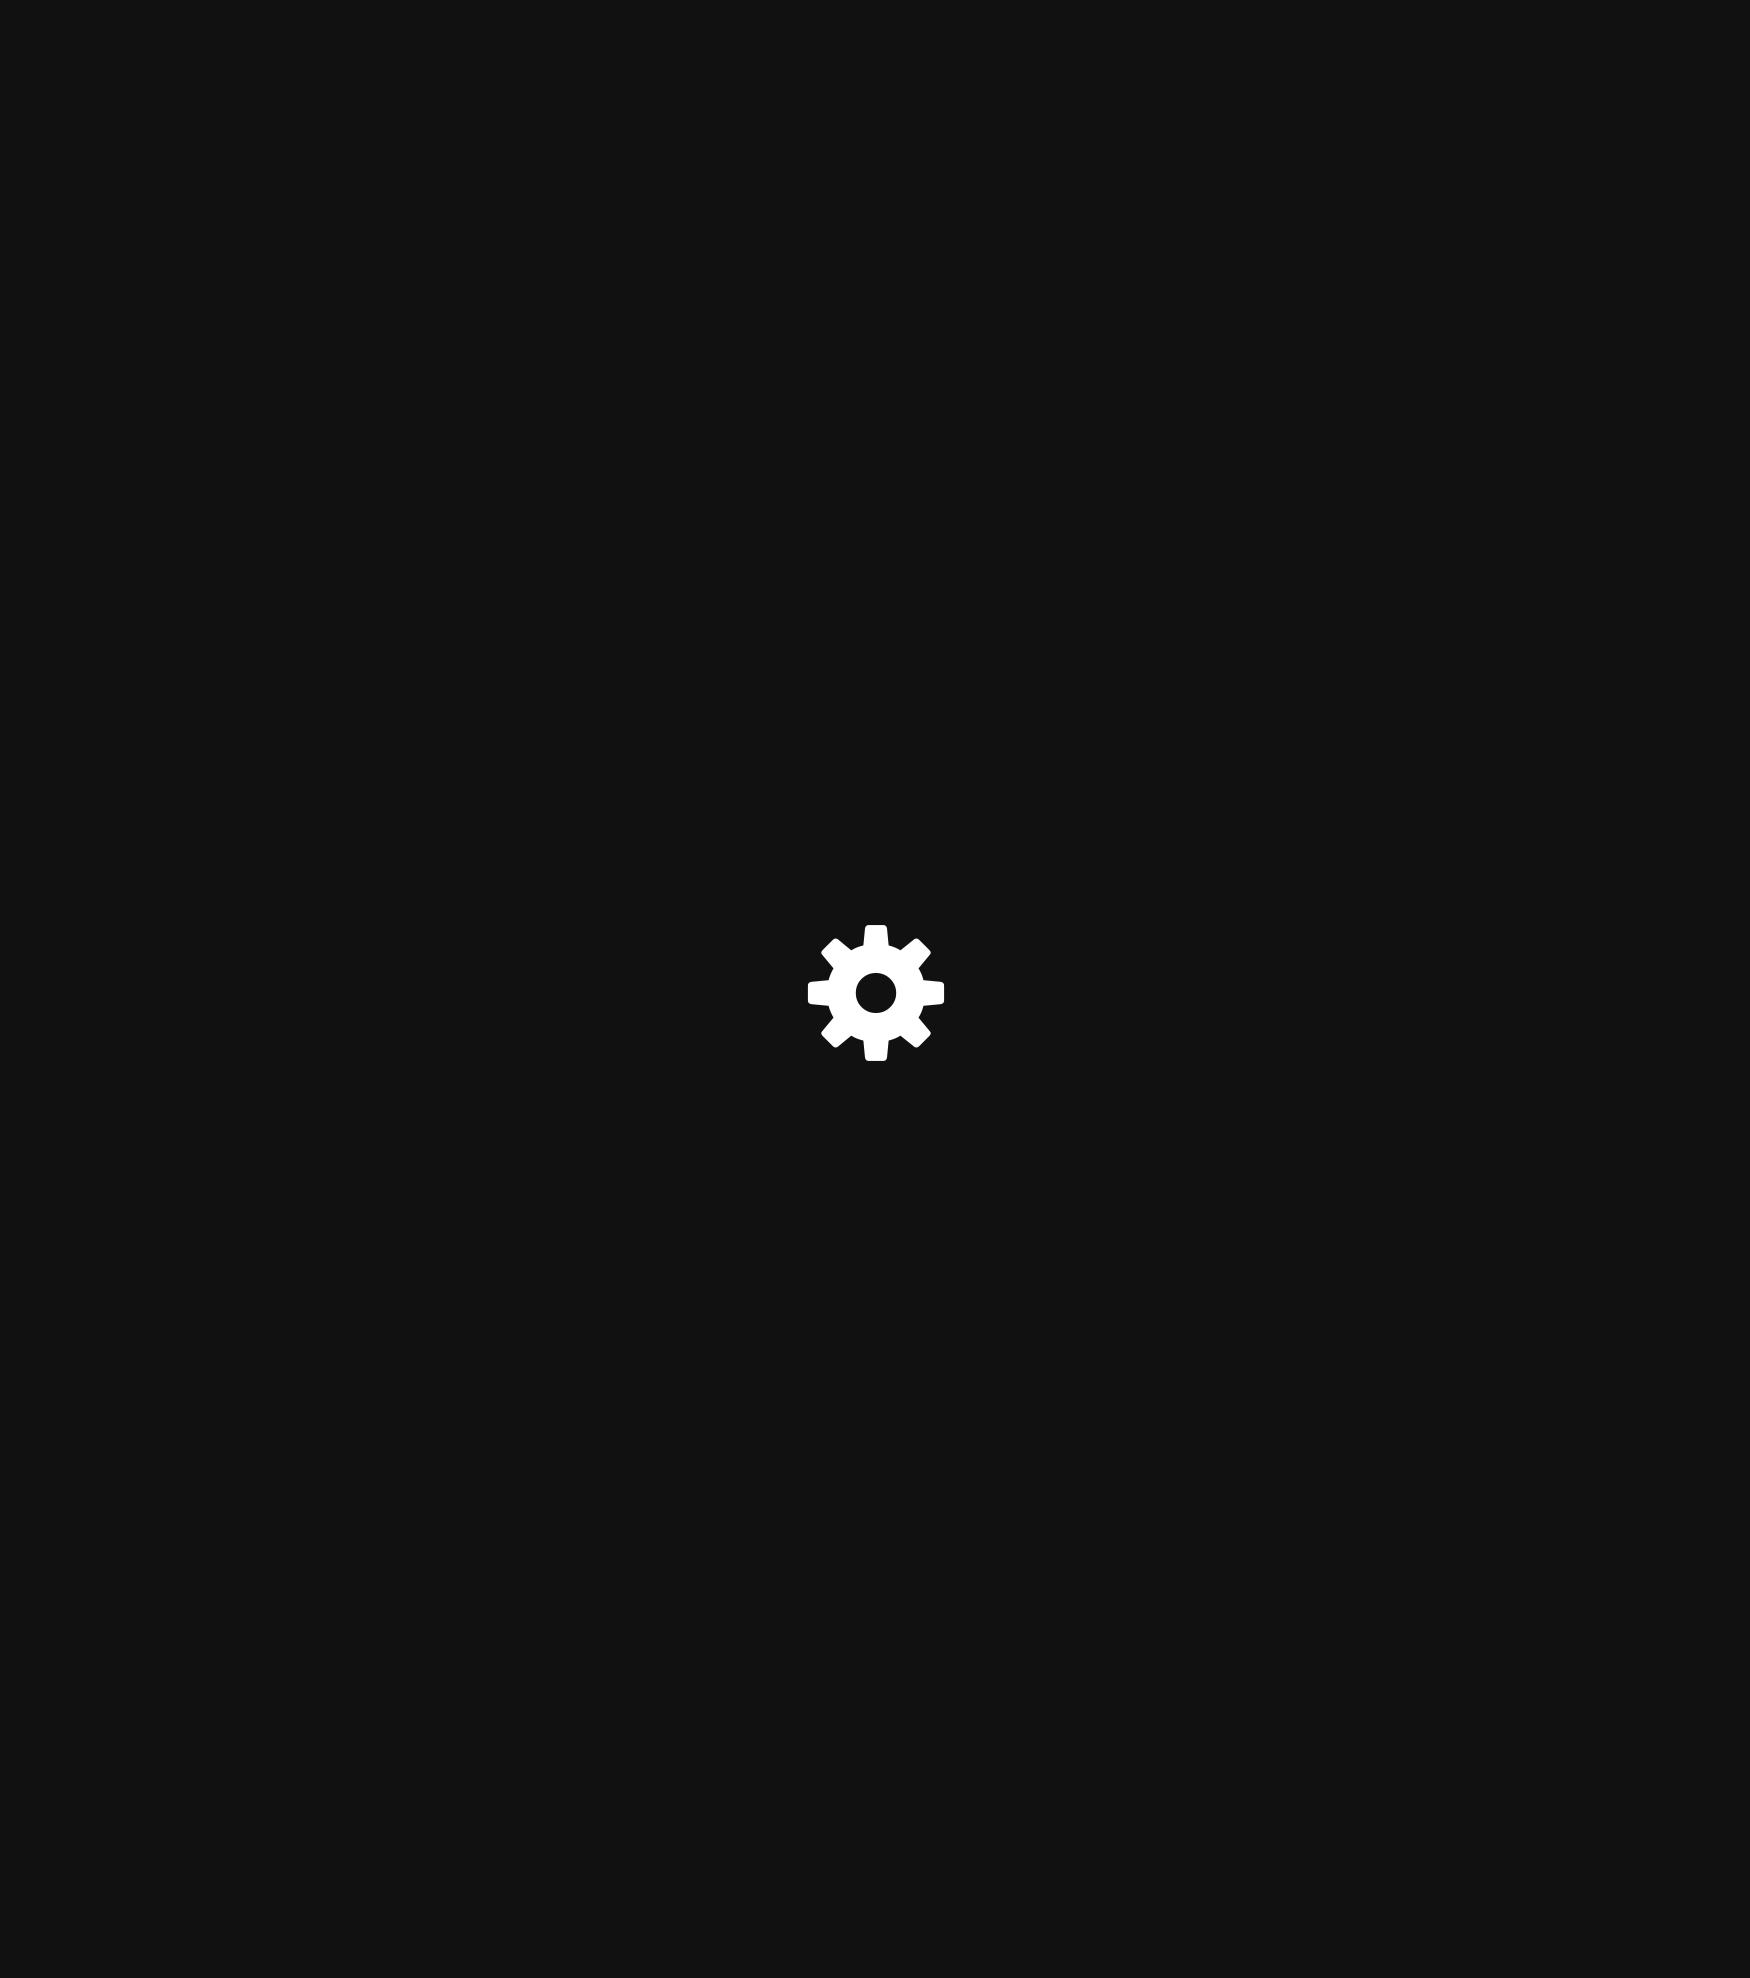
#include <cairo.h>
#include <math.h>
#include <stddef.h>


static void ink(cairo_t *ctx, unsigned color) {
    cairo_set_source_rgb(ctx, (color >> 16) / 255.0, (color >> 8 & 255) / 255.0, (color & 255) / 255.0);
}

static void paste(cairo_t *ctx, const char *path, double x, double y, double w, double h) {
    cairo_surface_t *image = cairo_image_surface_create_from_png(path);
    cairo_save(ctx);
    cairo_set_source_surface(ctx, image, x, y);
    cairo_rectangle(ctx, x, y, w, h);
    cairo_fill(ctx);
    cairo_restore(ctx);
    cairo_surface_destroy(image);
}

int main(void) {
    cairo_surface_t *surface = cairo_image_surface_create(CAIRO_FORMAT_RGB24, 1750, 1978);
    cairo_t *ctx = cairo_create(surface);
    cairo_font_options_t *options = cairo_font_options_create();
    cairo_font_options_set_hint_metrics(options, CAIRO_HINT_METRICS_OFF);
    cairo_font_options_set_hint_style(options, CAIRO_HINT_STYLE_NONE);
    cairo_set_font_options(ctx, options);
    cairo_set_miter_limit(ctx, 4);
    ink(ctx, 0x111111);
    cairo_paint(ctx);
    paste(ctx, "media/1.png", 807, 925, 138, 136);
    cairo_surface_write_to_png(surface, "image.png");
    cairo_font_options_destroy(options);
    cairo_destroy(ctx);
    cairo_surface_destroy(surface);
    return 0;
}
